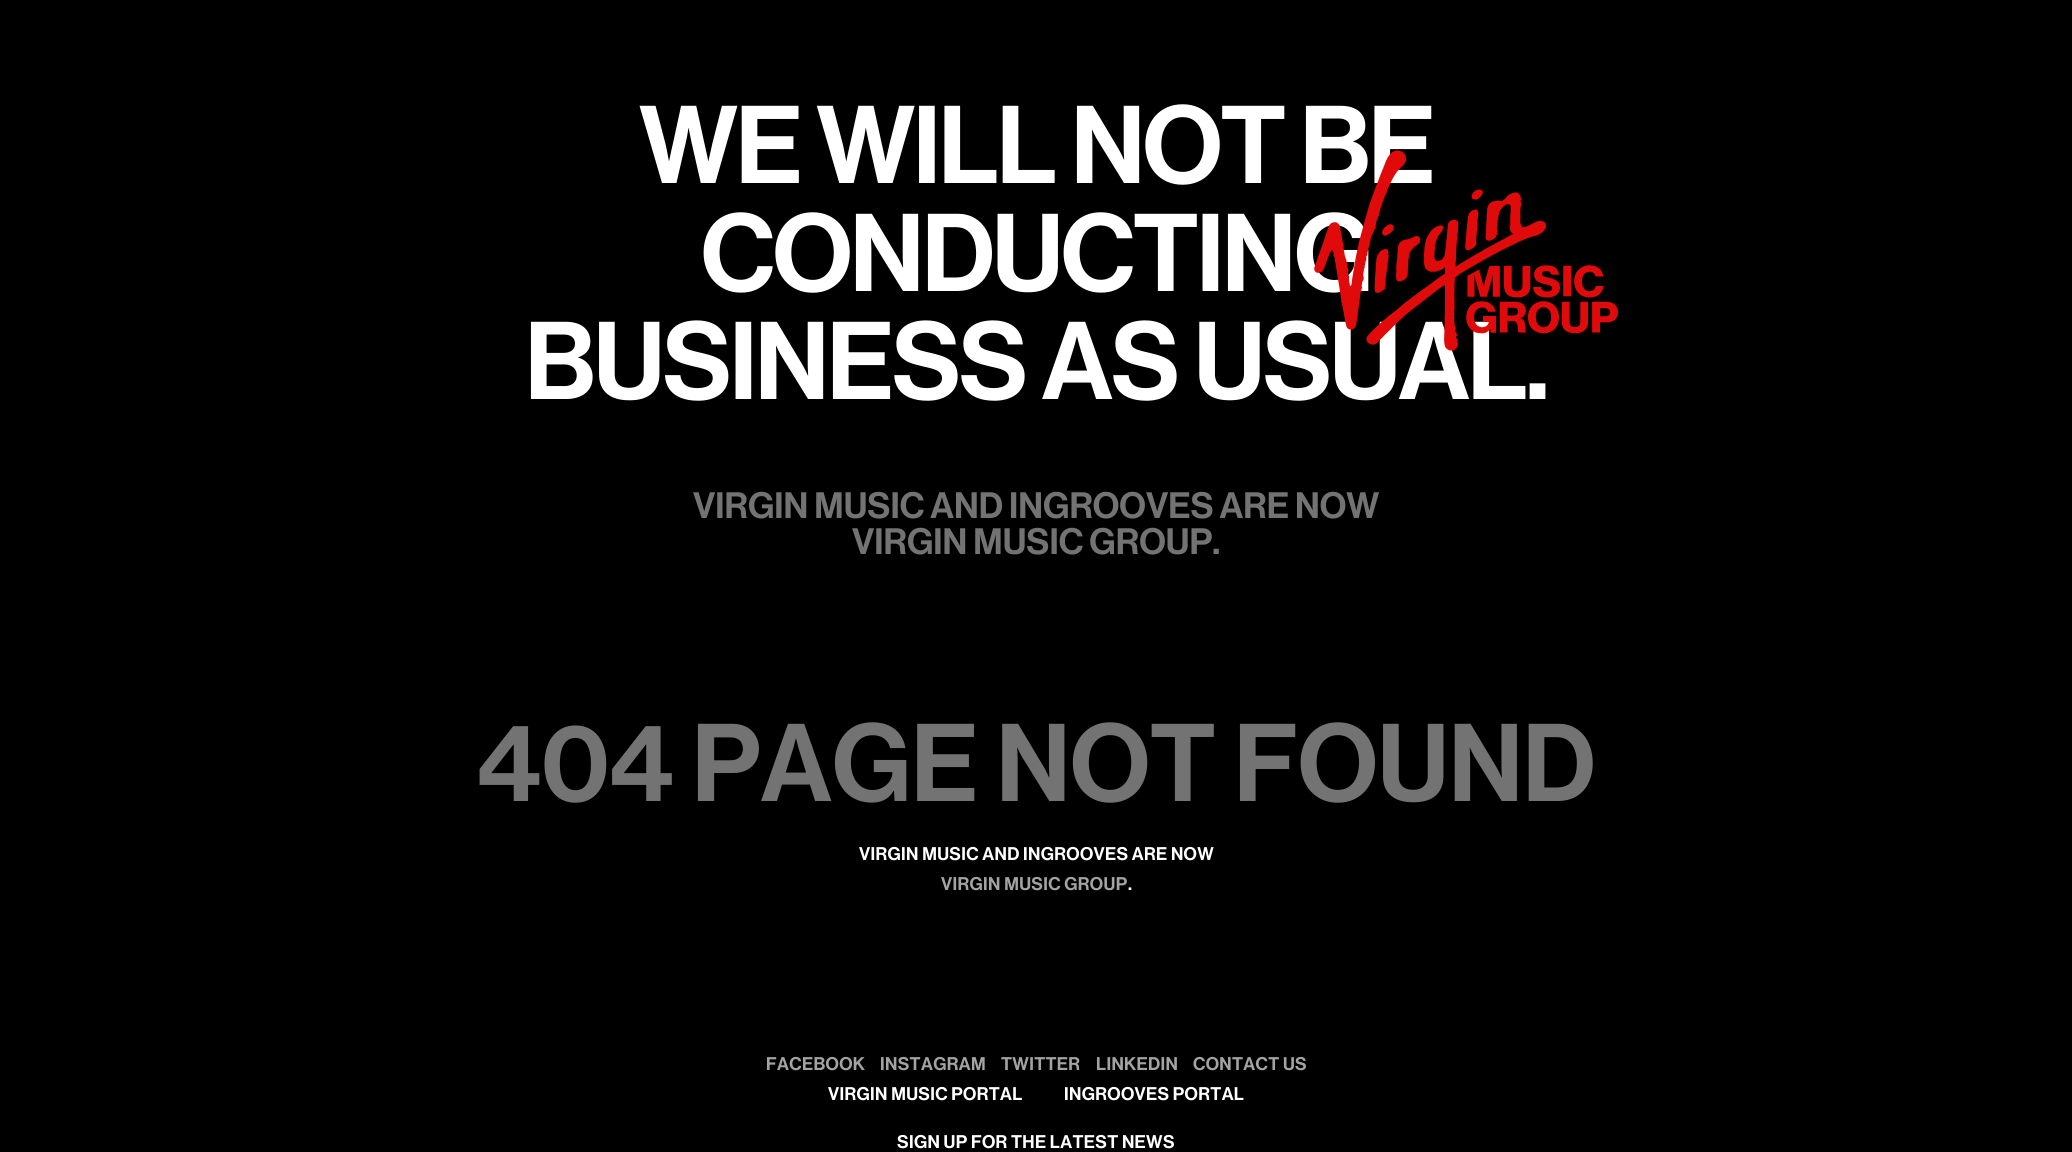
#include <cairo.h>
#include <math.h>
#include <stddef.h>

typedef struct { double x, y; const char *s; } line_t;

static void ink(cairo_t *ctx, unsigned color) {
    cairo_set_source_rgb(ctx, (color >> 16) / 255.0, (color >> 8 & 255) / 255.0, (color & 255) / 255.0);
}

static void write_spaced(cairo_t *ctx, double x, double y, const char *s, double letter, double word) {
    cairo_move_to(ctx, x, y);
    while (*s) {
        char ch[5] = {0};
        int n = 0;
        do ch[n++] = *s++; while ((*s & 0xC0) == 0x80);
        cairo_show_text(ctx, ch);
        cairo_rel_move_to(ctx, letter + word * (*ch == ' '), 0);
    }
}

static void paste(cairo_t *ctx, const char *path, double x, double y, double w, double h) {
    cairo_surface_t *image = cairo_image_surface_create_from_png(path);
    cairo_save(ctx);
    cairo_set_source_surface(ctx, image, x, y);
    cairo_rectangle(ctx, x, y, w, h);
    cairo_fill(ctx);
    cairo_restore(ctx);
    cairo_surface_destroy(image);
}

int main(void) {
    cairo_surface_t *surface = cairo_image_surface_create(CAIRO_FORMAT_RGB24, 2072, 1152);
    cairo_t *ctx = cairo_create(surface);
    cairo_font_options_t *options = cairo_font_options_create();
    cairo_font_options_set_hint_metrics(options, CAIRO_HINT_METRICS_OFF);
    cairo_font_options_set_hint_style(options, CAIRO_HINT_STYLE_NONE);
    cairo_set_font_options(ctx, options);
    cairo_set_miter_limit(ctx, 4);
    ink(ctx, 0x000000);
    cairo_paint(ctx);
    cairo_select_font_face(ctx, "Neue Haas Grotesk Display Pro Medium", CAIRO_FONT_SLANT_NORMAL, CAIRO_FONT_WEIGHT_NORMAL);
    cairo_set_font_size(ctx, 108);
    ink(ctx, 0xFFFFFF);
    {
        static const line_t items[] = {
            {639, 183, "WE WILL NOT BE"},
            {701, 291, "CONDUCTING"},
            {525, 399, "BUSINESS AS USUAL."},
        };
        for (size_t i = 0; i < sizeof items / sizeof *items; i++) {
            write_spaced(ctx, items[i].x, items[i].y, items[i].s, -2.2, 0);
        }
    }
    cairo_set_font_size(ctx, 36);
    ink(ctx, 0x737373);
    cairo_move_to(ctx, 693, 518);
    cairo_show_text(ctx, "VIRGIN MUSIC AND INGROOVES ARE NOW");
    cairo_move_to(ctx, 852, 554);
    cairo_show_text(ctx, "VIRGIN MUSIC GROUP.");
    paste(ctx, "media/1.png", 1314, 150, 304, 201);
    cairo_set_font_size(ctx, 108);
    cairo_move_to(ctx, 477, 801);
    cairo_show_text(ctx, "404 PAGE NOT FOUND");
    cairo_set_font_size(ctx, 18);
    ink(ctx, 0xFFFFFF);
    write_spaced(ctx, 859, 860, "VIRGIN MUSIC AND INGROOVES ARE NOW", 0.35, 0);
    ink(ctx, 0xA3A3A3);
    write_spaced(ctx, 941, 890, "VIRGIN MUSIC GROUP", 0.35, 0);
    ink(ctx, 0xFFFFFF);
    write_spaced(ctx, 1128, 890, ".", 0.35, 0);
    ink(ctx, 0xA3A3A3);
    {
        static const line_t items[] = {
            {766, 1070, "FACEBOOK"},
            {880, 1070, "INSTAGRAM"},
            {1001, 1070, "TWITTER"},
            {1096, 1070, "LINKEDIN"},
            {1193, 1070, "CONTACT US"},
        };
        for (size_t i = 0; i < sizeof items / sizeof *items; i++) {
            write_spaced(ctx, items[i].x, items[i].y, items[i].s, 0.35, 0);
        }
    }
    ink(ctx, 0xFFFFFF);
    {
        static const line_t items[] = {
            {828, 1100, "VIRGIN MUSIC PORTAL"},
            {1064, 1100, "INGROOVES PORTAL"},
            {897, 1148, "SIGN UP FOR THE LATEST NEWS"},
        };
        for (size_t i = 0; i < sizeof items / sizeof *items; i++) {
            write_spaced(ctx, items[i].x, items[i].y, items[i].s, 0.35, 0);
        }
    }
    cairo_surface_write_to_png(surface, "image.png");
    cairo_font_options_destroy(options);
    cairo_destroy(ctx);
    cairo_surface_destroy(surface);
    return 0;
}
